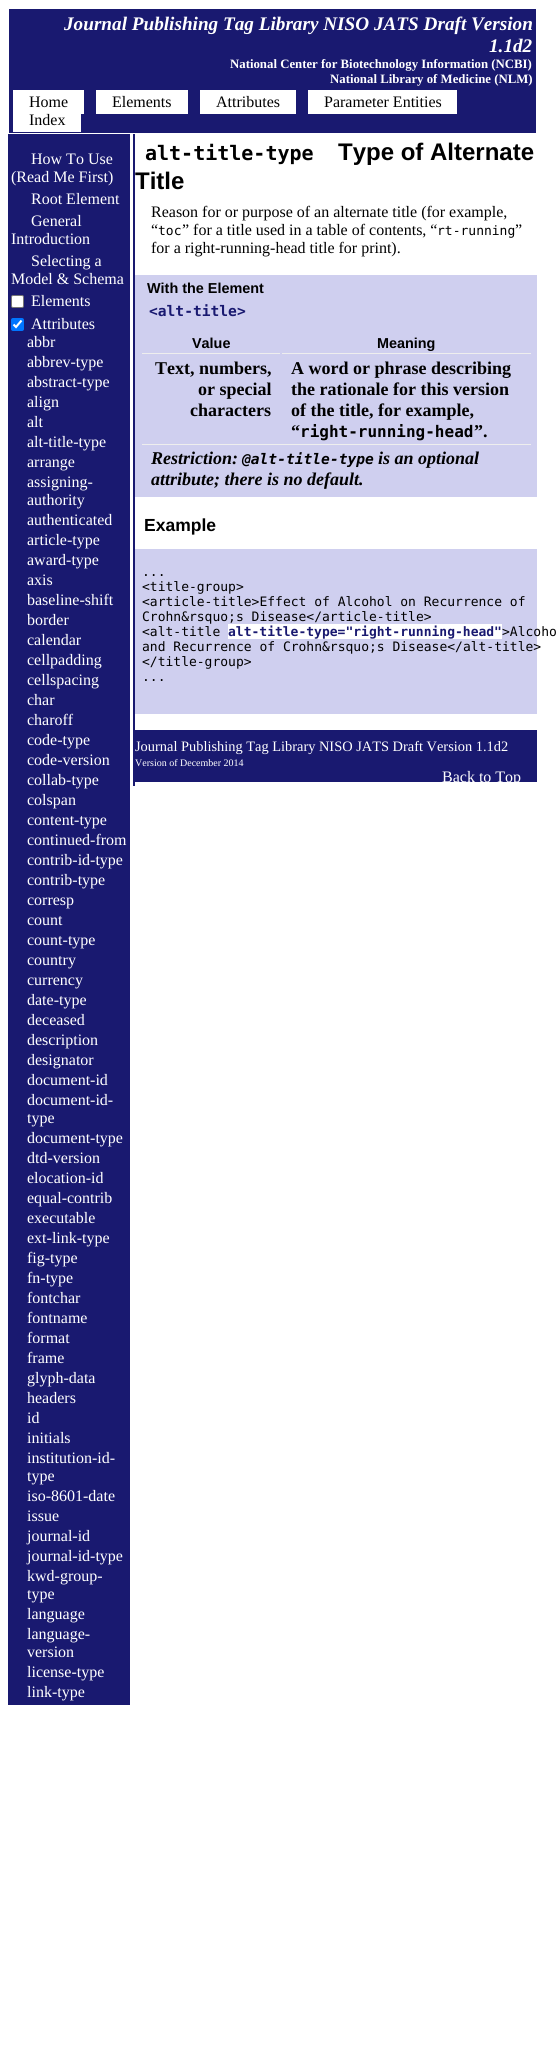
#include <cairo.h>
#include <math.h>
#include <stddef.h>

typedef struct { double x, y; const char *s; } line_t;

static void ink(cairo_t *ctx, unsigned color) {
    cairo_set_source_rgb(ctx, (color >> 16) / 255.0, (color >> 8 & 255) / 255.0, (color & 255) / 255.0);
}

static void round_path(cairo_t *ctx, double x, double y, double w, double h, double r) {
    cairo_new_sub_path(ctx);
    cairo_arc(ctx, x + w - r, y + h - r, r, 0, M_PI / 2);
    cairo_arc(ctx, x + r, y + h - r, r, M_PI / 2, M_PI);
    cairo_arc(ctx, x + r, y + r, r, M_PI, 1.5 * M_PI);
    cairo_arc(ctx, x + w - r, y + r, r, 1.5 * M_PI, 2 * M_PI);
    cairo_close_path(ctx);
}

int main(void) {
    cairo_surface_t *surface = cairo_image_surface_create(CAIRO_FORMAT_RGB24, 557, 2066);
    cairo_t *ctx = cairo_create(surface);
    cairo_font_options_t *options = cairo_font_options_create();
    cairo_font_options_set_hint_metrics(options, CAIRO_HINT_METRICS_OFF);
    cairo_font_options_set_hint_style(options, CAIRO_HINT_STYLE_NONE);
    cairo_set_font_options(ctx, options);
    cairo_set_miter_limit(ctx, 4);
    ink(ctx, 0xFFFFFF);
    cairo_paint(ctx);
    ink(ctx, 0x191970);
    cairo_rectangle(ctx, 9, 9, 527, 124);
    cairo_fill(ctx);
    cairo_select_font_face(ctx, "Liberation Serif", CAIRO_FONT_SLANT_ITALIC, CAIRO_FONT_WEIGHT_BOLD);
    cairo_set_font_size(ctx, 19.2);
    ink(ctx, 0xFFFFFF);
    cairo_move_to(ctx, 64, 30);
    cairo_show_text(ctx, "Journal Publishing Tag Library NISO JATS Draft Version");
    cairo_move_to(ctx, 489, 52);
    cairo_show_text(ctx, "1.1d2");
    cairo_select_font_face(ctx, "Liberation Serif", CAIRO_FONT_SLANT_NORMAL, CAIRO_FONT_WEIGHT_BOLD);
    cairo_set_font_size(ctx, 12.8);
    cairo_move_to(ctx, 230, 68);
    cairo_show_text(ctx, "National Center for Biotechnology Information (NCBI)");
    cairo_move_to(ctx, 330, 83);
    cairo_show_text(ctx, "National Library of Medicine (NLM)");
    cairo_rectangle(ctx, 13, 90, 71, 24);
    cairo_fill(ctx);
    cairo_select_font_face(ctx, "Liberation Serif", CAIRO_FONT_SLANT_NORMAL, CAIRO_FONT_WEIGHT_NORMAL);
    cairo_set_font_size(ctx, 16);
    ink(ctx, 0x000000);
    cairo_move_to(ctx, 29, 107);
    cairo_show_text(ctx, "Home");
    ink(ctx, 0xFFFFFF);
    cairo_rectangle(ctx, 96, 90, 92, 24);
    cairo_fill(ctx);
    ink(ctx, 0x000000);
    cairo_move_to(ctx, 112, 107);
    cairo_show_text(ctx, "Elements");
    ink(ctx, 0xFFFFFF);
    cairo_rectangle(ctx, 200, 90, 96, 24);
    cairo_fill(ctx);
    ink(ctx, 0x000000);
    cairo_move_to(ctx, 216, 107);
    cairo_show_text(ctx, "Attributes");
    ink(ctx, 0xFFFFFF);
    cairo_rectangle(ctx, 308, 90, 149, 24);
    cairo_fill(ctx);
    ink(ctx, 0x000000);
    cairo_move_to(ctx, 324, 107);
    cairo_show_text(ctx, "Parameter Entities");
    ink(ctx, 0xFFFFFF);
    cairo_rectangle(ctx, 13, 114, 68, 18);
    cairo_fill(ctx);
    ink(ctx, 0x000000);
    cairo_move_to(ctx, 29, 125);
    cairo_show_text(ctx, "Index");
    ink(ctx, 0x191970);
    cairo_rectangle(ctx, 8, 134, 122, 1571);
    cairo_fill(ctx);
    ink(ctx, 0xFFFFFF);
    {
        static const line_t items[] = {
            {31, 164, "How To Use"},
            {11, 182, "(Read Me First)"},
            {31, 204, "Root Element"},
            {31, 226, "General"},
            {11, 244, "Introduction"},
            {31, 266, "Selecting a"},
            {11, 284, "Model & Schema"},
        };
        for (size_t i = 0; i < sizeof items / sizeof *items; i++) {
            cairo_move_to(ctx, items[i].x, items[i].y);
            cairo_show_text(ctx, items[i].s);
        }
    }
    round_path(ctx, 11.5, 295.5, 12, 12, 1.5);
    cairo_fill_preserve(ctx);
    ink(ctx, 0x767676);
    cairo_set_line_width(ctx, 1);
    cairo_stroke(ctx);
    ink(ctx, 0xFFFFFF);
    cairo_move_to(ctx, 31, 306);
    cairo_show_text(ctx, "Elements");
    ink(ctx, 0x0075FF);
    round_path(ctx, 11, 318, 13, 13, 2);
    cairo_fill(ctx);
    cairo_new_path(ctx);
    cairo_move_to(ctx, 13.5, 324.5);
    cairo_line_to(ctx, 16, 327);
    cairo_line_to(ctx, 21.5, 320.5);
    ink(ctx, 0xFFFFFF);
    cairo_set_line_width(ctx, 2.1);
    cairo_stroke(ctx);
    {
        static const line_t items[] = {
            {31, 329, "Attributes"},
            {27, 347, "abbr"},
            {27, 367, "abbrev-type"},
            {27, 387, "abstract-type"},
            {27, 407, "align"},
            {27, 427, "alt"},
            {27, 447, "alt-title-type"},
            {27, 467, "arrange"},
            {27, 487, "assigning-"},
            {27, 505, "authority"},
            {27, 525, "authenticated"},
            {27, 545, "article-type"},
            {27, 565, "award-type"},
            {27, 585, "axis"},
            {27, 605, "baseline-shift"},
            {27, 625, "border"},
            {27, 645, "calendar"},
            {27, 665, "cellpadding"},
            {27, 685, "cellspacing"},
            {27, 705, "char"},
            {27, 725, "charoff"},
            {27, 745, "code-type"},
            {27, 765, "code-version"},
            {27, 785, "collab-type"},
            {27, 805, "colspan"},
            {27, 825, "content-type"},
            {27, 845, "continued-from"},
            {27, 865, "contrib-id-type"},
            {27, 885, "contrib-type"},
            {27, 905, "corresp"},
            {27, 925, "count"},
            {27, 945, "count-type"},
            {27, 965, "country"},
            {27, 985, "currency"},
            {27, 1005, "date-type"},
            {27, 1025, "deceased"},
            {27, 1045, "description"},
            {27, 1065, "designator"},
            {27, 1085, "document-id"},
            {27, 1105, "document-id-"},
            {27, 1123, "type"},
            {27, 1143, "document-type"},
            {27, 1163, "dtd-version"},
            {27, 1183, "elocation-id"},
            {27, 1203, "equal-contrib"},
            {27, 1223, "executable"},
            {27, 1243, "ext-link-type"},
            {27, 1263, "fig-type"},
            {27, 1283, "fn-type"},
            {27, 1303, "fontchar"},
            {27, 1323, "fontname"},
            {27, 1343, "format"},
            {27, 1363, "frame"},
            {27, 1383, "glyph-data"},
            {27, 1403, "headers"},
            {27, 1423, "id"},
            {27, 1443, "initials"},
            {27, 1463, "institution-id-"},
            {27, 1481, "type"},
            {27, 1501, "iso-8601-date"},
            {27, 1521, "issue"},
            {27, 1541, "journal-id"},
            {27, 1561, "journal-id-type"},
            {27, 1581, "kwd-group-"},
            {27, 1599, "type"},
            {27, 1619, "language"},
            {27, 1639, "language-"},
            {27, 1657, "version"},
            {27, 1677, "license-type"},
            {27, 1697, "link-type"},
        };
        for (size_t i = 0; i < sizeof items / sizeof *items; i++) {
            cairo_move_to(ctx, items[i].x, items[i].y);
            cairo_show_text(ctx, items[i].s);
        }
    }
    ink(ctx, 0x191970);
    cairo_rectangle(ctx, 133, 134, 2, 652);
    cairo_fill(ctx);
    cairo_select_font_face(ctx, "DejaVu Sans Mono", CAIRO_FONT_SLANT_NORMAL, CAIRO_FONT_WEIGHT_BOLD);
    cairo_set_font_size(ctx, 20);
    ink(ctx, 0x000000);
    cairo_move_to(ctx, 145, 160);
    cairo_show_text(ctx, "alt-title-type");
    cairo_select_font_face(ctx, "Liberation Sans", CAIRO_FONT_SLANT_NORMAL, CAIRO_FONT_WEIGHT_BOLD);
    cairo_set_font_size(ctx, 24);
    cairo_move_to(ctx, 338, 160);
    cairo_show_text(ctx, "Type of Alternate");
    cairo_move_to(ctx, 135, 189);
    cairo_show_text(ctx, "Title");
    cairo_select_font_face(ctx, "Liberation Serif", CAIRO_FONT_SLANT_NORMAL, CAIRO_FONT_WEIGHT_NORMAL);
    cairo_set_font_size(ctx, 16);
    cairo_move_to(ctx, 151, 217);
    cairo_show_text(ctx, "Reason for or purpose of an alternate title (for example,");
    cairo_move_to(ctx, 151, 235);
    cairo_show_text(ctx, "“");
    cairo_select_font_face(ctx, "DejaVu Sans Mono", CAIRO_FONT_SLANT_NORMAL, CAIRO_FONT_WEIGHT_NORMAL);
    cairo_set_font_size(ctx, 13);
    cairo_move_to(ctx, 158, 235);
    cairo_show_text(ctx, "toc");
    cairo_select_font_face(ctx, "Liberation Serif", CAIRO_FONT_SLANT_NORMAL, CAIRO_FONT_WEIGHT_NORMAL);
    cairo_set_font_size(ctx, 16);
    cairo_move_to(ctx, 182, 235);
    cairo_show_text(ctx, "” for a title used in a table of contents, “");
    cairo_select_font_face(ctx, "DejaVu Sans Mono", CAIRO_FONT_SLANT_NORMAL, CAIRO_FONT_WEIGHT_NORMAL);
    cairo_set_font_size(ctx, 13);
    cairo_move_to(ctx, 437, 235);
    cairo_show_text(ctx, "rt-running");
    cairo_select_font_face(ctx, "Liberation Serif", CAIRO_FONT_SLANT_NORMAL, CAIRO_FONT_WEIGHT_NORMAL);
    cairo_set_font_size(ctx, 16);
    cairo_move_to(ctx, 515, 235);
    cairo_show_text(ctx, "”");
    cairo_move_to(ctx, 151, 253);
    cairo_show_text(ctx, "for a right-running-head title for print).");
    ink(ctx, 0xCFCFEF);
    cairo_rectangle(ctx, 135, 275, 402, 222);
    cairo_fill(ctx);
    cairo_select_font_face(ctx, "Liberation Sans", CAIRO_FONT_SLANT_NORMAL, CAIRO_FONT_WEIGHT_BOLD);
    cairo_set_font_size(ctx, 14.4);
    ink(ctx, 0x000000);
    cairo_move_to(ctx, 147, 293);
    cairo_show_text(ctx, "With the Element");
    cairo_select_font_face(ctx, "DejaVu Sans Mono", CAIRO_FONT_SLANT_NORMAL, CAIRO_FONT_WEIGHT_BOLD);
    cairo_set_font_size(ctx, 14.6);
    ink(ctx, 0x191970);
    cairo_move_to(ctx, 149, 316);
    cairo_show_text(ctx, "<alt-title>");
    cairo_select_font_face(ctx, "Liberation Sans", CAIRO_FONT_SLANT_NORMAL, CAIRO_FONT_WEIGHT_BOLD);
    cairo_set_font_size(ctx, 14.4);
    ink(ctx, 0x000000);
    cairo_move_to(ctx, 192, 348);
    cairo_show_text(ctx, "Value");
    cairo_move_to(ctx, 377, 348);
    cairo_show_text(ctx, "Meaning");
    ink(ctx, 0xEEEEEE);
    cairo_rectangle(ctx, 142, 353, 138, 1);
    cairo_fill(ctx);
    cairo_select_font_face(ctx, "Liberation Serif", CAIRO_FONT_SLANT_NORMAL, CAIRO_FONT_WEIGHT_BOLD);
    cairo_set_font_size(ctx, 18);
    ink(ctx, 0x000000);
    {
        static const line_t items[] = {
            {155, 374, "Text, numbers,"},
            {198, 395, "or special"},
            {190, 416, "characters"},
        };
        for (size_t i = 0; i < sizeof items / sizeof *items; i++) {
            cairo_move_to(ctx, items[i].x, items[i].y);
            cairo_show_text(ctx, items[i].s);
        }
    }
    ink(ctx, 0xEEEEEE);
    cairo_rectangle(ctx, 282, 353, 249, 1);
    cairo_fill(ctx);
    ink(ctx, 0x000000);
    {
        static const line_t items[] = {
            {291, 374, "A word or phrase describing"},
            {291, 395, "the rationale for this version"},
            {291, 416, "of the title, for example,"},
            {291, 437, "“"},
        };
        for (size_t i = 0; i < sizeof items / sizeof *items; i++) {
            cairo_move_to(ctx, items[i].x, items[i].y);
            cairo_show_text(ctx, items[i].s);
        }
    }
    cairo_select_font_face(ctx, "DejaVu Sans Mono", CAIRO_FONT_SLANT_NORMAL, CAIRO_FONT_WEIGHT_BOLD);
    cairo_set_font_size(ctx, 16);
    cairo_move_to(ctx, 300, 437);
    cairo_show_text(ctx, "right-running-head");
    cairo_select_font_face(ctx, "Liberation Serif", CAIRO_FONT_SLANT_NORMAL, CAIRO_FONT_WEIGHT_BOLD);
    cairo_set_font_size(ctx, 18);
    cairo_move_to(ctx, 474, 437);
    cairo_show_text(ctx, "”.");
    ink(ctx, 0xEEEEEE);
    cairo_rectangle(ctx, 142, 444, 389, 1);
    cairo_fill(ctx);
    cairo_select_font_face(ctx, "Liberation Serif", CAIRO_FONT_SLANT_ITALIC, CAIRO_FONT_WEIGHT_BOLD);
    ink(ctx, 0x000000);
    cairo_move_to(ctx, 151, 464);
    cairo_show_text(ctx, "Restriction:");
    cairo_select_font_face(ctx, "DejaVu Sans Mono", CAIRO_FONT_SLANT_ITALIC, CAIRO_FONT_WEIGHT_BOLD);
    cairo_set_font_size(ctx, 14.6);
    cairo_move_to(ctx, 242, 464);
    cairo_show_text(ctx, "@alt-title-type");
    cairo_select_font_face(ctx, "Liberation Serif", CAIRO_FONT_SLANT_ITALIC, CAIRO_FONT_WEIGHT_BOLD);
    cairo_set_font_size(ctx, 18);
    cairo_move_to(ctx, 378, 464);
    cairo_show_text(ctx, "is an optional");
    cairo_move_to(ctx, 151, 485);
    cairo_show_text(ctx, "attribute; there is no default.");
    cairo_select_font_face(ctx, "Liberation Sans", CAIRO_FONT_SLANT_NORMAL, CAIRO_FONT_WEIGHT_BOLD);
    cairo_set_font_size(ctx, 17.5);
    cairo_move_to(ctx, 144, 531);
    cairo_show_text(ctx, "Example");
    ink(ctx, 0xCFCFEF);
    cairo_rectangle(ctx, 135, 549, 402, 165);
    cairo_fill(ctx);
    cairo_select_font_face(ctx, "DejaVu Sans Mono", CAIRO_FONT_SLANT_NORMAL, CAIRO_FONT_WEIGHT_NORMAL);
    cairo_set_font_size(ctx, 13);
    ink(ctx, 0x000000);
    {
        static const line_t items[] = {
            {142, 576, "..."},
            {142, 591, "<title-group>"},
            {142, 606, "<article-title>Effect of Alcohol on Recurrence of"},
            {142, 621, "Crohn&rsquo;s Disease</article-title>"},
            {142, 636, "<alt-title"},
        };
        for (size_t i = 0; i < sizeof items / sizeof *items; i++) {
            cairo_move_to(ctx, items[i].x, items[i].y);
            cairo_show_text(ctx, items[i].s);
        }
    }
    ink(ctx, 0xFFFFFF);
    cairo_rectangle(ctx, 228, 624, 274, 15);
    cairo_fill(ctx);
    cairo_select_font_face(ctx, "DejaVu Sans Mono", CAIRO_FONT_SLANT_NORMAL, CAIRO_FONT_WEIGHT_BOLD);
    ink(ctx, 0x191970);
    cairo_move_to(ctx, 228, 636);
    cairo_show_text(ctx, "alt-title-type=\"right-running-head\"");
    cairo_select_font_face(ctx, "DejaVu Sans Mono", CAIRO_FONT_SLANT_NORMAL, CAIRO_FONT_WEIGHT_NORMAL);
    ink(ctx, 0x000000);
    {
        static const line_t items[] = {
            {502, 636, ">Alcoho"},
            {142, 651, "and Recurrence of Crohn&rsquo;s Disease</alt-title>"},
            {142, 666, "</title-group>"},
            {142, 681, "..."},
        };
        for (size_t i = 0; i < sizeof items / sizeof *items; i++) {
            cairo_move_to(ctx, items[i].x, items[i].y);
            cairo_show_text(ctx, items[i].s);
        }
    }
    ink(ctx, 0x191970);
    cairo_rectangle(ctx, 135, 730, 402, 52);
    cairo_fill(ctx);
    cairo_select_font_face(ctx, "Liberation Serif", CAIRO_FONT_SLANT_NORMAL, CAIRO_FONT_WEIGHT_NORMAL);
    cairo_set_font_size(ctx, 14.4);
    ink(ctx, 0xFFFFFF);
    cairo_move_to(ctx, 135, 751);
    cairo_show_text(ctx, "Journal Publishing Tag Library NISO JATS Draft Version 1.1d2");
    cairo_set_font_size(ctx, 10);
    cairo_move_to(ctx, 135, 766);
    cairo_show_text(ctx, "Version of December 2014");
    cairo_set_font_size(ctx, 16);
    cairo_move_to(ctx, 442, 782);
    cairo_show_text(ctx, "Back to Top");
    cairo_surface_write_to_png(surface, "image.png");
    cairo_font_options_destroy(options);
    cairo_destroy(ctx);
    cairo_surface_destroy(surface);
    return 0;
}
